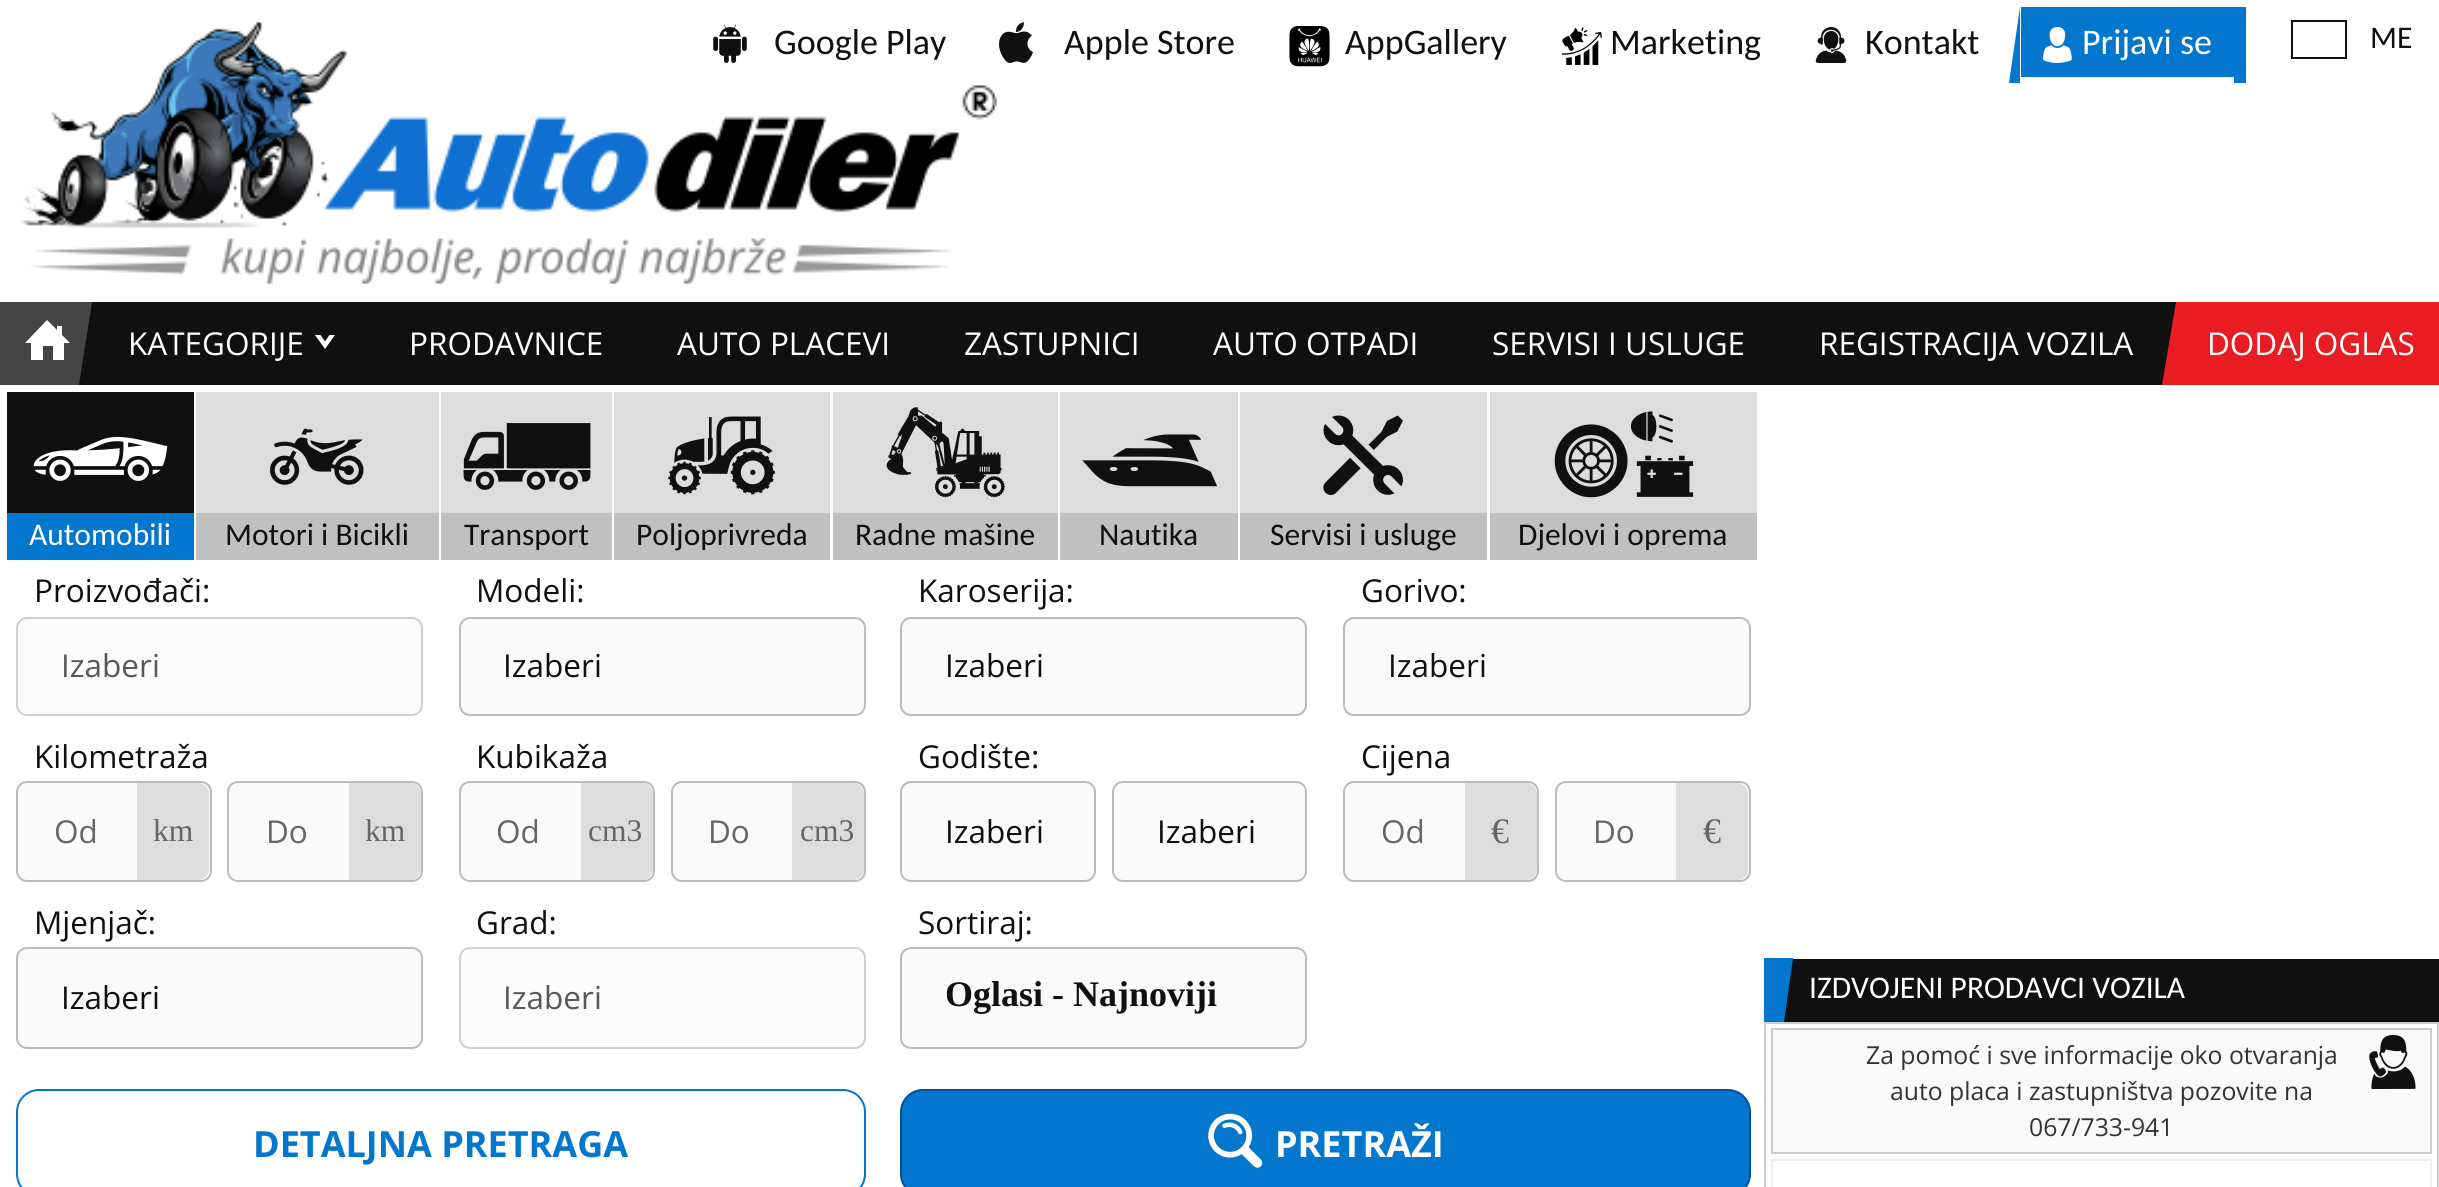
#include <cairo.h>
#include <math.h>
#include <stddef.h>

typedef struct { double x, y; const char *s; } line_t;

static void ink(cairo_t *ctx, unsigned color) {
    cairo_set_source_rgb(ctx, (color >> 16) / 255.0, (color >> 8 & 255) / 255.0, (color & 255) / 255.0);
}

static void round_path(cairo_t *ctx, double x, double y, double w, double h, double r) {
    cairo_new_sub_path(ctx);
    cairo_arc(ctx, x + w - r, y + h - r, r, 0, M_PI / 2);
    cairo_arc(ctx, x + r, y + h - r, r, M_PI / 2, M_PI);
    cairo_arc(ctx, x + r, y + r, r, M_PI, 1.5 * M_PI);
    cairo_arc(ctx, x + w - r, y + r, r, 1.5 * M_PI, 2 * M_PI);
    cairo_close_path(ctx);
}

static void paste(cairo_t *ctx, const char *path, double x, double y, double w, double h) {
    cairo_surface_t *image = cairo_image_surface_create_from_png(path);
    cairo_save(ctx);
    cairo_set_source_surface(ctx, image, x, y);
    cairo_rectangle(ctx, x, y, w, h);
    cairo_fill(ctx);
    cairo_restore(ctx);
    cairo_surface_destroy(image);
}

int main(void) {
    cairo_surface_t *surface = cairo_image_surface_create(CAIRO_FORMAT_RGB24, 2439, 1187);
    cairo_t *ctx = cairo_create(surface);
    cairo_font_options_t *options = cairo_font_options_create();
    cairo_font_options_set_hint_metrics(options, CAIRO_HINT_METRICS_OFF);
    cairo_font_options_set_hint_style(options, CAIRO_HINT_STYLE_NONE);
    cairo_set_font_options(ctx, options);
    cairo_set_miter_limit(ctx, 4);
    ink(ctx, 0xFFFFFF);
    cairo_paint(ctx);
    paste(ctx, "media/1.png", 20, 22, 977, 263);
    paste(ctx, "media/2.png", 713, 24, 34, 39);
    cairo_select_font_face(ctx, "Carlito", CAIRO_FONT_SLANT_NORMAL, CAIRO_FONT_WEIGHT_NORMAL);
    cairo_set_font_size(ctx, 36);
    ink(ctx, 0x101010);
    cairo_move_to(ctx, 774, 54);
    cairo_show_text(ctx, "Google Play");
    paste(ctx, "media/3.png", 999, 22, 34, 41);
    cairo_move_to(ctx, 1064, 54);
    cairo_show_text(ctx, "Apple Store");
    paste(ctx, "media/4.png", 1289, 26, 41, 41);
    cairo_move_to(ctx, 1345, 54);
    cairo_show_text(ctx, "AppGallery");
    paste(ctx, "media/5.png", 1562, 27, 40, 38);
    cairo_move_to(ctx, 1610, 54);
    cairo_show_text(ctx, "Marketing");
    paste(ctx, "media/6.png", 1815, 27, 32, 36);
    cairo_move_to(ctx, 1865, 54);
    cairo_show_text(ctx, "Kontakt");
    ink(ctx, 0x0377CD);
    cairo_rectangle(ctx, 2021, 7, 213, 70);
    cairo_fill(ctx);
    cairo_new_path(ctx);
    cairo_move_to(ctx, 2020, 83);
    cairo_line_to(ctx, 2009, 83);
    cairo_line_to(ctx, 2020, 7);
    cairo_close_path(ctx);
    cairo_fill(ctx);
    paste(ctx, "media/7.png", 2043, 27, 29, 36);
    ink(ctx, 0xFFFFFF);
    cairo_move_to(ctx, 2082, 54);
    cairo_show_text(ctx, "Prijavi se");
    ink(ctx, 0x0377CD);
    cairo_rectangle(ctx, 2234, 7, 12, 76);
    cairo_fill(ctx);
    cairo_rectangle(ctx, 2292, 21, 54, 37);
    ink(ctx, 0x101010);
    cairo_stroke(ctx);
    cairo_set_font_size(ctx, 31.5);
    cairo_move_to(ctx, 2370, 48);
    cairo_show_text(ctx, "ME");
    cairo_rectangle(ctx, 79, 302, 2097, 83);
    cairo_fill(ctx);
    ink(ctx, 0x444444);
    cairo_rectangle(ctx, 0, 302, 79, 83);
    cairo_fill(ctx);
    ink(ctx, 0xFFFFFF);
    cairo_new_path(ctx);
    cairo_move_to(ctx, 43, 346);
    cairo_line_to(ctx, 53, 346);
    cairo_line_to(ctx, 53, 360);
    cairo_line_to(ctx, 64, 360);
    cairo_line_to(ctx, 64, 343);
    cairo_line_to(ctx, 70, 343);
    cairo_line_to(ctx, 62, 335);
    cairo_line_to(ctx, 62, 326);
    cairo_line_to(ctx, 57, 326);
    cairo_line_to(ctx, 57, 330);
    cairo_line_to(ctx, 47, 320);
    cairo_line_to(ctx, 25, 343);
    cairo_line_to(ctx, 31, 343);
    cairo_line_to(ctx, 31, 360);
    cairo_line_to(ctx, 43, 360);
    cairo_close_path(ctx);
    cairo_fill(ctx);
    ink(ctx, 0x444444);
    cairo_new_path(ctx);
    cairo_move_to(ctx, 79, 302);
    cairo_line_to(ctx, 92, 302);
    cairo_line_to(ctx, 79, 385);
    cairo_close_path(ctx);
    cairo_fill(ctx);
    cairo_select_font_face(ctx, "Open Sans", CAIRO_FONT_SLANT_NORMAL, CAIRO_FONT_WEIGHT_NORMAL);
    ink(ctx, 0xFFFFFF);
    cairo_move_to(ctx, 128, 355);
    cairo_show_text(ctx, "KATEGORIJE");
    cairo_new_path(ctx);
    cairo_move_to(ctx, 325, 349);
    cairo_line_to(ctx, 315, 335);
    cairo_line_to(ctx, 320.5, 335);
    cairo_line_to(ctx, 325, 341.5);
    cairo_line_to(ctx, 329.5, 335);
    cairo_line_to(ctx, 335, 335);
    cairo_close_path(ctx);
    cairo_fill(ctx);
    {
        static const line_t items[] = {
            {409, 355, "PRODAVNICE"},
            {677, 355, "AUTO PLACEVI"},
            {964, 355, "ZASTUPNICI"},
            {1213, 355, "AUTO OTPADI"},
            {1492, 355, "SERVISI I USLUGE"},
            {1819, 355, "REGISTRACIJA VOZILA"},
        };
        for (size_t i = 0; i < sizeof items / sizeof *items; i++) {
            cairo_move_to(ctx, items[i].x, items[i].y);
            cairo_show_text(ctx, items[i].s);
        }
    }
    ink(ctx, 0xE91C23);
    cairo_rectangle(ctx, 2176, 302, 263, 83);
    cairo_fill(ctx);
    cairo_new_path(ctx);
    cairo_move_to(ctx, 2176, 385);
    cairo_line_to(ctx, 2162, 385);
    cairo_line_to(ctx, 2176, 302);
    cairo_close_path(ctx);
    cairo_fill(ctx);
    ink(ctx, 0xFFFFFF);
    cairo_move_to(ctx, 2207, 355);
    cairo_show_text(ctx, "DODAJ OGLAS");
    ink(ctx, 0x101010);
    cairo_rectangle(ctx, 7, 392, 187, 121);
    cairo_fill(ctx);
    paste(ctx, "media/8.png", 33, 436, 135, 45);
    ink(ctx, 0x0377CD);
    cairo_rectangle(ctx, 7, 513, 187, 47);
    cairo_fill(ctx);
    cairo_select_font_face(ctx, "Carlito", CAIRO_FONT_SLANT_NORMAL, CAIRO_FONT_WEIGHT_NORMAL);
    ink(ctx, 0xFFFFFF);
    cairo_move_to(ctx, 29, 545);
    cairo_show_text(ctx, "Automobili");
    ink(ctx, 0xDDDDDD);
    cairo_rectangle(ctx, 196, 392, 243, 121);
    cairo_fill(ctx);
    paste(ctx, "media/9.png", 270, 428, 94, 57);
    ink(ctx, 0xC0C0C0);
    cairo_rectangle(ctx, 196, 513, 243, 47);
    cairo_fill(ctx);
    ink(ctx, 0x101010);
    cairo_move_to(ctx, 225, 545);
    cairo_show_text(ctx, "Motori i Bicikli");
    ink(ctx, 0xDDDDDD);
    cairo_rectangle(ctx, 441, 392, 171, 121);
    cairo_fill(ctx);
    paste(ctx, "media/10.png", 463, 423, 128, 67);
    ink(ctx, 0xC0C0C0);
    cairo_rectangle(ctx, 441, 513, 171, 47);
    cairo_fill(ctx);
    ink(ctx, 0x101010);
    cairo_move_to(ctx, 464, 545);
    cairo_show_text(ctx, "Transport");
    ink(ctx, 0xDDDDDD);
    cairo_rectangle(ctx, 614, 392, 216, 121);
    cairo_fill(ctx);
    paste(ctx, "media/11.png", 668, 416, 107, 79);
    ink(ctx, 0xC0C0C0);
    cairo_rectangle(ctx, 614, 513, 216, 47);
    cairo_fill(ctx);
    ink(ctx, 0x101010);
    cairo_move_to(ctx, 636, 545);
    cairo_show_text(ctx, "Poljoprivreda");
    ink(ctx, 0xDDDDDD);
    cairo_rectangle(ctx, 833, 392, 225, 121);
    cairo_fill(ctx);
    paste(ctx, "media/12.png", 886, 407, 119, 91);
    ink(ctx, 0xC0C0C0);
    cairo_rectangle(ctx, 833, 513, 225, 47);
    cairo_fill(ctx);
    ink(ctx, 0x101010);
    cairo_move_to(ctx, 855, 545);
    cairo_show_text(ctx, "Radne mašine");
    ink(ctx, 0xDDDDDD);
    cairo_rectangle(ctx, 1060, 392, 178, 121);
    cairo_fill(ctx);
    paste(ctx, "media/13.png", 1082, 434, 135, 53);
    ink(ctx, 0xC0C0C0);
    cairo_rectangle(ctx, 1060, 513, 178, 47);
    cairo_fill(ctx);
    ink(ctx, 0x101010);
    cairo_move_to(ctx, 1099, 545);
    cairo_show_text(ctx, "Nautika");
    ink(ctx, 0xDDDDDD);
    cairo_rectangle(ctx, 1240, 392, 247, 121);
    cairo_fill(ctx);
    paste(ctx, "media/14.png", 1323, 415, 80, 80);
    ink(ctx, 0xC0C0C0);
    cairo_rectangle(ctx, 1240, 513, 247, 47);
    cairo_fill(ctx);
    ink(ctx, 0x101010);
    cairo_move_to(ctx, 1270, 545);
    cairo_show_text(ctx, "Servisi i usluge");
    ink(ctx, 0xDDDDDD);
    cairo_rectangle(ctx, 1490, 392, 267, 121);
    cairo_fill(ctx);
    paste(ctx, "media/15.png", 1554, 411, 140, 87);
    ink(ctx, 0xC0C0C0);
    cairo_rectangle(ctx, 1490, 513, 267, 47);
    cairo_fill(ctx);
    ink(ctx, 0x101010);
    cairo_move_to(ctx, 1518, 545);
    cairo_show_text(ctx, "Djelovi i oprema");
    cairo_select_font_face(ctx, "Open Sans", CAIRO_FONT_SLANT_NORMAL, CAIRO_FONT_WEIGHT_NORMAL);
    cairo_move_to(ctx, 34, 602);
    cairo_show_text(ctx, "Proizvođači:");
    ink(ctx, 0xFCFCFC);
    round_path(ctx, 17, 618, 405, 97, 10);
    cairo_fill_preserve(ctx);
    ink(ctx, 0xCFCFCF);
    cairo_stroke(ctx);
    ink(ctx, 0x585858);
    cairo_move_to(ctx, 61, 677);
    cairo_show_text(ctx, "Izaberi");
    ink(ctx, 0x101010);
    cairo_move_to(ctx, 476, 602);
    cairo_show_text(ctx, "Modeli:");
    ink(ctx, 0xFAFAFA);
    round_path(ctx, 460, 618, 405, 97, 10);
    cairo_fill_preserve(ctx);
    ink(ctx, 0xBBBBBB);
    cairo_stroke(ctx);
    ink(ctx, 0x101010);
    cairo_move_to(ctx, 503, 677);
    cairo_show_text(ctx, "Izaberi");
    cairo_move_to(ctx, 918, 602);
    cairo_show_text(ctx, "Karoserija:");
    ink(ctx, 0xFAFAFA);
    round_path(ctx, 901, 618, 405, 97, 10);
    cairo_fill_preserve(ctx);
    ink(ctx, 0xBBBBBB);
    cairo_stroke(ctx);
    ink(ctx, 0x101010);
    cairo_move_to(ctx, 945, 677);
    cairo_show_text(ctx, "Izaberi");
    cairo_move_to(ctx, 1361, 602);
    cairo_show_text(ctx, "Gorivo:");
    ink(ctx, 0xFAFAFA);
    round_path(ctx, 1344, 618, 406, 97, 10);
    cairo_fill_preserve(ctx);
    ink(ctx, 0xBBBBBB);
    cairo_stroke(ctx);
    ink(ctx, 0x101010);
    cairo_move_to(ctx, 1388, 677);
    cairo_show_text(ctx, "Izaberi");
    cairo_move_to(ctx, 34, 768);
    cairo_show_text(ctx, "Kilometraža");
    ink(ctx, 0xFAFAFA);
    round_path(ctx, 17, 782, 194, 99, 10);
    cairo_fill_preserve(ctx);
    ink(ctx, 0xBBBBBB);
    cairo_stroke(ctx);
    ink(ctx, 0x666666);
    cairo_move_to(ctx, 54, 843);
    cairo_show_text(ctx, "Od");
    ink(ctx, 0xDDDDDD);
    cairo_new_path(ctx);
    cairo_move_to(ctx, 137, 783);
    cairo_line_to(ctx, 198, 783);
    cairo_curve_to(ctx, 204, 783, 209, 788, 209, 794);
    cairo_line_to(ctx, 209, 869);
    cairo_curve_to(ctx, 209, 875, 204, 880, 198, 880);
    cairo_line_to(ctx, 137, 880);
    cairo_close_path(ctx);
    cairo_fill(ctx);
    cairo_select_font_face(ctx, "Liberation Serif", CAIRO_FONT_SLANT_NORMAL, CAIRO_FONT_WEIGHT_NORMAL);
    ink(ctx, 0x666666);
    cairo_move_to(ctx, 153, 841);
    cairo_show_text(ctx, "km");
    ink(ctx, 0xFAFAFA);
    round_path(ctx, 228, 782, 194, 99, 10);
    cairo_fill_preserve(ctx);
    ink(ctx, 0xBBBBBB);
    cairo_stroke(ctx);
    cairo_select_font_face(ctx, "Open Sans", CAIRO_FONT_SLANT_NORMAL, CAIRO_FONT_WEIGHT_NORMAL);
    ink(ctx, 0x666666);
    cairo_move_to(ctx, 266, 843);
    cairo_show_text(ctx, "Do");
    ink(ctx, 0xDDDDDD);
    cairo_new_path(ctx);
    cairo_move_to(ctx, 349, 783);
    cairo_line_to(ctx, 410, 783);
    cairo_curve_to(ctx, 416, 783, 421, 788, 421, 794);
    cairo_line_to(ctx, 421, 869);
    cairo_curve_to(ctx, 421, 875, 416, 880, 410, 880);
    cairo_line_to(ctx, 349, 880);
    cairo_close_path(ctx);
    cairo_fill(ctx);
    cairo_select_font_face(ctx, "Liberation Serif", CAIRO_FONT_SLANT_NORMAL, CAIRO_FONT_WEIGHT_NORMAL);
    ink(ctx, 0x666666);
    cairo_move_to(ctx, 365, 841);
    cairo_show_text(ctx, "km");
    cairo_select_font_face(ctx, "Open Sans", CAIRO_FONT_SLANT_NORMAL, CAIRO_FONT_WEIGHT_NORMAL);
    ink(ctx, 0x101010);
    cairo_move_to(ctx, 476, 768);
    cairo_show_text(ctx, "Kubikaža");
    ink(ctx, 0xFAFAFA);
    round_path(ctx, 460, 782, 194, 99, 10);
    cairo_fill_preserve(ctx);
    ink(ctx, 0xBBBBBB);
    cairo_stroke(ctx);
    ink(ctx, 0x666666);
    cairo_move_to(ctx, 496, 843);
    cairo_show_text(ctx, "Od");
    ink(ctx, 0xDDDDDD);
    cairo_new_path(ctx);
    cairo_move_to(ctx, 581, 783);
    cairo_line_to(ctx, 642, 783);
    cairo_curve_to(ctx, 648, 783, 653, 788, 653, 794);
    cairo_line_to(ctx, 653, 869);
    cairo_curve_to(ctx, 653, 875, 648, 880, 642, 880);
    cairo_line_to(ctx, 581, 880);
    cairo_close_path(ctx);
    cairo_fill(ctx);
    cairo_select_font_face(ctx, "Liberation Serif", CAIRO_FONT_SLANT_NORMAL, CAIRO_FONT_WEIGHT_NORMAL);
    ink(ctx, 0x666666);
    cairo_move_to(ctx, 588, 841);
    cairo_show_text(ctx, "cm3");
    ink(ctx, 0xFAFAFA);
    round_path(ctx, 672, 782, 193, 99, 10);
    cairo_fill_preserve(ctx);
    ink(ctx, 0xBBBBBB);
    cairo_stroke(ctx);
    cairo_select_font_face(ctx, "Open Sans", CAIRO_FONT_SLANT_NORMAL, CAIRO_FONT_WEIGHT_NORMAL);
    ink(ctx, 0x666666);
    cairo_move_to(ctx, 708, 843);
    cairo_show_text(ctx, "Do");
    ink(ctx, 0xDDDDDD);
    cairo_new_path(ctx);
    cairo_move_to(ctx, 792, 783);
    cairo_line_to(ctx, 853, 783);
    cairo_curve_to(ctx, 859, 783, 864, 788, 864, 794);
    cairo_line_to(ctx, 864, 869);
    cairo_curve_to(ctx, 864, 875, 859, 880, 853, 880);
    cairo_line_to(ctx, 792, 880);
    cairo_close_path(ctx);
    cairo_fill(ctx);
    cairo_select_font_face(ctx, "Liberation Serif", CAIRO_FONT_SLANT_NORMAL, CAIRO_FONT_WEIGHT_NORMAL);
    ink(ctx, 0x666666);
    cairo_move_to(ctx, 800, 841);
    cairo_show_text(ctx, "cm3");
    cairo_select_font_face(ctx, "Open Sans", CAIRO_FONT_SLANT_NORMAL, CAIRO_FONT_WEIGHT_NORMAL);
    ink(ctx, 0x101010);
    cairo_move_to(ctx, 918, 768);
    cairo_show_text(ctx, "Godište:");
    ink(ctx, 0xFAFAFA);
    round_path(ctx, 901, 782, 194, 99, 10);
    cairo_fill_preserve(ctx);
    ink(ctx, 0xBBBBBB);
    cairo_stroke(ctx);
    ink(ctx, 0x101010);
    cairo_move_to(ctx, 945, 843);
    cairo_show_text(ctx, "Izaberi");
    ink(ctx, 0xFAFAFA);
    round_path(ctx, 1113, 782, 193, 99, 10);
    cairo_fill_preserve(ctx);
    ink(ctx, 0xBBBBBB);
    cairo_stroke(ctx);
    ink(ctx, 0x101010);
    cairo_move_to(ctx, 1157, 843);
    cairo_show_text(ctx, "Izaberi");
    cairo_move_to(ctx, 1361, 768);
    cairo_show_text(ctx, "Cijena");
    ink(ctx, 0xFAFAFA);
    round_path(ctx, 1344, 782, 194, 99, 10);
    cairo_fill_preserve(ctx);
    ink(ctx, 0xBBBBBB);
    cairo_stroke(ctx);
    ink(ctx, 0x666666);
    cairo_move_to(ctx, 1381, 843);
    cairo_show_text(ctx, "Od");
    ink(ctx, 0xDDDDDD);
    cairo_new_path(ctx);
    cairo_move_to(ctx, 1465, 783);
    cairo_line_to(ctx, 1526, 783);
    cairo_curve_to(ctx, 1532, 783, 1537, 788, 1537, 794);
    cairo_line_to(ctx, 1537, 869);
    cairo_curve_to(ctx, 1537, 875, 1532, 880, 1526, 880);
    cairo_line_to(ctx, 1465, 880);
    cairo_close_path(ctx);
    cairo_fill(ctx);
    cairo_select_font_face(ctx, "Liberation Serif", CAIRO_FONT_SLANT_NORMAL, CAIRO_FONT_WEIGHT_NORMAL);
    cairo_set_font_size(ctx, 36);
    ink(ctx, 0x666666);
    cairo_move_to(ctx, 1491, 843);
    cairo_show_text(ctx, "€");
    ink(ctx, 0xFAFAFA);
    round_path(ctx, 1556, 782, 194, 99, 10);
    cairo_fill_preserve(ctx);
    ink(ctx, 0xBBBBBB);
    cairo_stroke(ctx);
    cairo_select_font_face(ctx, "Open Sans", CAIRO_FONT_SLANT_NORMAL, CAIRO_FONT_WEIGHT_NORMAL);
    cairo_set_font_size(ctx, 31.5);
    ink(ctx, 0x666666);
    cairo_move_to(ctx, 1593, 843);
    cairo_show_text(ctx, "Do");
    ink(ctx, 0xDDDDDD);
    cairo_new_path(ctx);
    cairo_move_to(ctx, 1676, 783);
    cairo_line_to(ctx, 1737, 783);
    cairo_curve_to(ctx, 1743, 783, 1748, 788, 1748, 794);
    cairo_line_to(ctx, 1748, 869);
    cairo_curve_to(ctx, 1748, 875, 1743, 880, 1737, 880);
    cairo_line_to(ctx, 1676, 880);
    cairo_close_path(ctx);
    cairo_fill(ctx);
    cairo_select_font_face(ctx, "Liberation Serif", CAIRO_FONT_SLANT_NORMAL, CAIRO_FONT_WEIGHT_NORMAL);
    cairo_set_font_size(ctx, 36);
    ink(ctx, 0x666666);
    cairo_move_to(ctx, 1703, 843);
    cairo_show_text(ctx, "€");
    cairo_select_font_face(ctx, "Open Sans", CAIRO_FONT_SLANT_NORMAL, CAIRO_FONT_WEIGHT_NORMAL);
    cairo_set_font_size(ctx, 31.5);
    ink(ctx, 0x101010);
    cairo_move_to(ctx, 34, 934);
    cairo_show_text(ctx, "Mjenjač:");
    ink(ctx, 0xFAFAFA);
    round_path(ctx, 17, 948, 405, 100, 10);
    cairo_fill_preserve(ctx);
    ink(ctx, 0xBBBBBB);
    cairo_stroke(ctx);
    ink(ctx, 0x101010);
    cairo_move_to(ctx, 61, 1009);
    cairo_show_text(ctx, "Izaberi");
    cairo_move_to(ctx, 476, 934);
    cairo_show_text(ctx, "Grad:");
    ink(ctx, 0xFCFCFC);
    round_path(ctx, 460, 948, 405, 100, 10);
    cairo_fill_preserve(ctx);
    ink(ctx, 0xCFCFCF);
    cairo_stroke(ctx);
    ink(ctx, 0x585858);
    cairo_move_to(ctx, 503, 1009);
    cairo_show_text(ctx, "Izaberi");
    ink(ctx, 0x101010);
    cairo_move_to(ctx, 918, 934);
    cairo_show_text(ctx, "Sortiraj:");
    ink(ctx, 0xFAFAFA);
    round_path(ctx, 901, 948, 405, 100, 10);
    cairo_fill_preserve(ctx);
    ink(ctx, 0xBBBBBB);
    cairo_stroke(ctx);
    cairo_select_font_face(ctx, "Liberation Serif", CAIRO_FONT_SLANT_NORMAL, CAIRO_FONT_WEIGHT_BOLD);
    cairo_set_font_size(ctx, 36);
    ink(ctx, 0x101010);
    cairo_move_to(ctx, 945, 1006);
    cairo_show_text(ctx, "Oglasi - Najnoviji");
    round_path(ctx, 17, 1090, 848, 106, 22);
    ink(ctx, 0x0377CD);
    cairo_stroke(ctx);
    cairo_select_font_face(ctx, "Open Sans", CAIRO_FONT_SLANT_NORMAL, CAIRO_FONT_WEIGHT_BOLD);
    cairo_move_to(ctx, 253, 1157);
    cairo_show_text(ctx, "DETALJNA PRETRAGA");
    round_path(ctx, 901, 1090, 849, 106, 22);
    cairo_fill_preserve(ctx);
    ink(ctx, 0x0050A0);
    cairo_stroke(ctx);
    paste(ctx, "media/16.png", 1208, 1113, 55, 55);
    ink(ctx, 0xFFFFFF);
    cairo_move_to(ctx, 1275, 1157);
    cairo_show_text(ctx, "PRETRAŽI");
    ink(ctx, 0x101010);
    cairo_rectangle(ctx, 1784, 959, 655, 63);
    cairo_fill(ctx);
    ink(ctx, 0x0377CD);
    cairo_new_path(ctx);
    cairo_move_to(ctx, 1764, 958);
    cairo_line_to(ctx, 1793, 958);
    cairo_line_to(ctx, 1784, 1022);
    cairo_line_to(ctx, 1764, 1022);
    cairo_close_path(ctx);
    cairo_fill(ctx);
    cairo_select_font_face(ctx, "Carlito", CAIRO_FONT_SLANT_NORMAL, CAIRO_FONT_WEIGHT_NORMAL);
    cairo_set_font_size(ctx, 31.5);
    ink(ctx, 0xFFFFFF);
    cairo_move_to(ctx, 1809, 998);
    cairo_show_text(ctx, "IZDVOJENI PRODAVCI VOZILA");
    cairo_rectangle(ctx, 1765, 1023, 673, 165);
    ink(ctx, 0xCCCCCC);
    cairo_stroke(ctx);
    ink(ctx, 0xF9F9F9);
    cairo_rectangle(ctx, 1772, 1029, 659, 124);
    cairo_fill_preserve(ctx);
    ink(ctx, 0xCCCCCC);
    cairo_stroke(ctx);
    cairo_select_font_face(ctx, "Open Sans", CAIRO_FONT_SLANT_NORMAL, CAIRO_FONT_WEIGHT_NORMAL);
    cairo_set_font_size(ctx, 24.75);
    ink(ctx, 0x333333);
    {
        static const line_t items[] = {
            {1866, 1064, "Za pomoć i sve informacije oko otvaranja"},
            {1890, 1100, "auto placa i zastupništva pozovite na"},
            {2029, 1136, "067/733-941"},
        };
        for (size_t i = 0; i < sizeof items / sizeof *items; i++) {
            cairo_move_to(ctx, items[i].x, items[i].y);
            cairo_show_text(ctx, items[i].s);
        }
    }
    paste(ctx, "media/17.png", 2369, 1035, 47, 54);
    cairo_rectangle(ctx, 1772, 1160, 659, 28);
    ink(ctx, 0xF0F0F0);
    cairo_stroke(ctx);
    cairo_surface_write_to_png(surface, "image.png");
    cairo_font_options_destroy(options);
    cairo_destroy(ctx);
    cairo_surface_destroy(surface);
    return 0;
}
